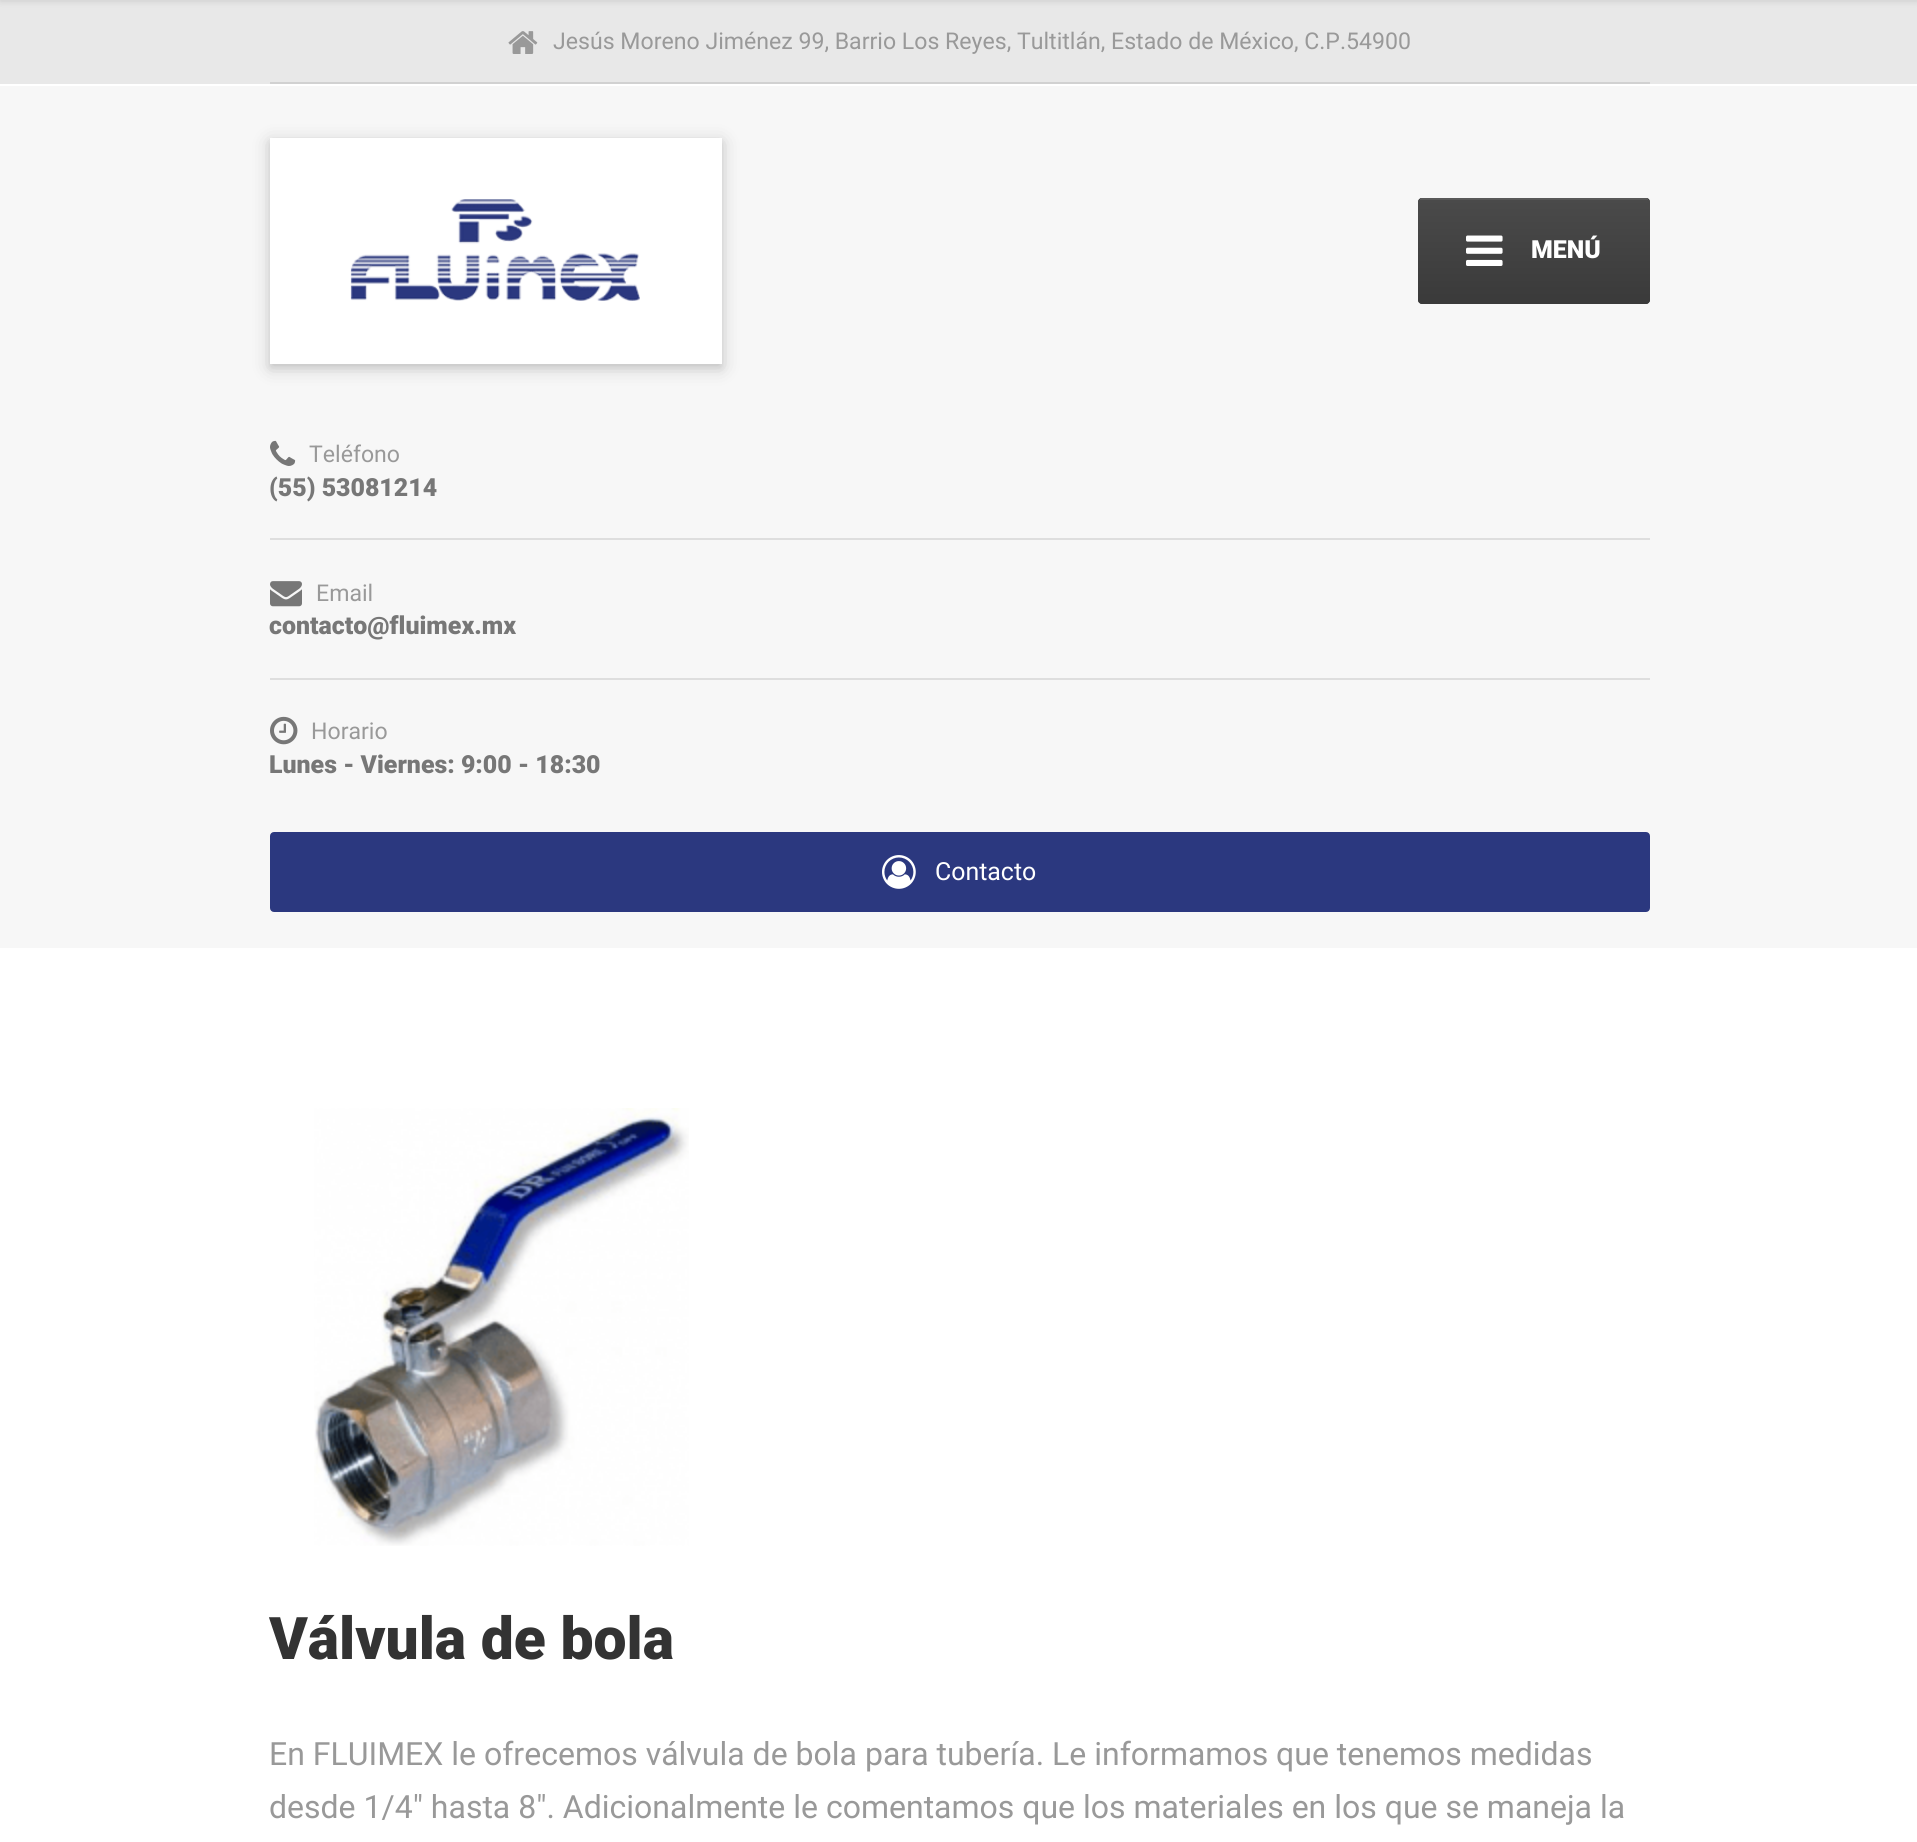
#include <cairo.h>
#include <math.h>
#include <stddef.h>


static void ink(cairo_t *ctx, unsigned color) {
    cairo_set_source_rgb(ctx, (color >> 16) / 255.0, (color >> 8 & 255) / 255.0, (color & 255) / 255.0);
}

static void round_path(cairo_t *ctx, double x, double y, double w, double h, double r) {
    cairo_new_sub_path(ctx);
    cairo_arc(ctx, x + w - r, y + h - r, r, 0, M_PI / 2);
    cairo_arc(ctx, x + r, y + h - r, r, M_PI / 2, M_PI);
    cairo_arc(ctx, x + r, y + r, r, M_PI, 1.5 * M_PI);
    cairo_arc(ctx, x + w - r, y + r, r, 1.5 * M_PI, 2 * M_PI);
    cairo_close_path(ctx);
}

static void blur_box(cairo_t *ctx, double x, double y, double w, double h, double r, double blur, double alpha) {
    cairo_push_group_with_content(ctx, CAIRO_CONTENT_ALPHA);
    cairo_set_operator(ctx, CAIRO_OPERATOR_SOURCE);
    for (int i = 15; i >= -15 && fmin(w, h) + blur * i / 3 > 0; i -= 2) {
        double e = blur * i / 6;
        cairo_set_source_rgba(ctx, 0, 0, 0, alpha * erfc((i - 1) / 8.5) / 2);
        round_path(ctx, x - e, y - e, w + 2 * e, h + 2 * e, fmax(0, fmin(r + e + blur * .6, fmin(w, h) / 2 + e)));
        cairo_fill(ctx);
    }
    cairo_pattern_t *soft = cairo_pop_group(ctx);
    cairo_mask(ctx, soft);
    cairo_pattern_destroy(soft);
}

static void paste(cairo_t *ctx, const char *path, double x, double y, double w, double h) {
    cairo_surface_t *image = cairo_image_surface_create_from_png(path);
    cairo_save(ctx);
    cairo_set_source_surface(ctx, image, x, y);
    cairo_rectangle(ctx, x, y, w, h);
    cairo_fill(ctx);
    cairo_restore(ctx);
    cairo_surface_destroy(image);
}

int main(void) {
    cairo_surface_t *surface = cairo_image_surface_create(CAIRO_FORMAT_RGB24, 1917, 1842);
    cairo_t *ctx = cairo_create(surface);
    cairo_font_options_t *options = cairo_font_options_create();
    cairo_font_options_set_hint_metrics(options, CAIRO_HINT_METRICS_OFF);
    cairo_font_options_set_hint_style(options, CAIRO_HINT_STYLE_NONE);
    cairo_set_font_options(ctx, options);
    cairo_set_miter_limit(ctx, 4);
    cairo_pattern_t *gradient;
    ink(ctx, 0xFFFFFF);
    cairo_paint(ctx);
    ink(ctx, 0xE8E8E8);
    cairo_rectangle(ctx, 0, 0, 1917, 84);
    cairo_fill(ctx);
    ink(ctx, 0x000000);
    blur_box(ctx, 0, -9, 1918, 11, 0, 3, 0.1);
    ink(ctx, 0xD1D1D1);
    cairo_rectangle(ctx, 270, 82, 1380, 2);
    cairo_fill(ctx);
    paste(ctx, "media/1.png", 508, 31, 30, 23);
    cairo_select_font_face(ctx, "Roboto", CAIRO_FONT_SLANT_NORMAL, CAIRO_FONT_WEIGHT_NORMAL);
    cairo_set_font_size(ctx, 23.1);
    ink(ctx, 0x999999);
    cairo_move_to(ctx, 553, 49);
    cairo_show_text(ctx, "Jesús Moreno Jiménez 99, Barrio Los Reyes, Tultitlán, Estado de México, C.P.54900");
    ink(ctx, 0xF7F7F7);
    cairo_rectangle(ctx, 0, 86, 1917, 862);
    cairo_fill(ctx);
    ink(ctx, 0x000000);
    blur_box(ctx, 270, 142, 452, 226, 0, 10, 0.15);
    blur_box(ctx, 270, 142, 452, 226, 0, 4, 0.1);
    ink(ctx, 0xFFFFFF);
    cairo_rectangle(ctx, 270, 138, 452, 226);
    cairo_fill(ctx);
    paste(ctx, "media/2.png", 350, 199, 290, 102);
    ink(ctx, 0x4A4A4A);
    round_path(ctx, 1418, 198, 232, 106, 4);
    cairo_fill(ctx);
    cairo_save(ctx);
    round_path(ctx, 1418, 198, 232, 106, 4);
    cairo_clip(ctx);
    gradient = cairo_pattern_create_linear(1534, 96, 1534, 200);
    cairo_pattern_add_color_stop_rgba(gradient, 0, 0.29, 0.29, 0.29, 1);
    cairo_pattern_add_color_stop_rgba(gradient, 1, 0.227, 0.227, 0.227, 1);
    cairo_set_source(ctx, gradient);
    cairo_pattern_destroy(gradient);
    cairo_rectangle(ctx, 1418, 198, 232, 2);
    cairo_fill(ctx);
    gradient = cairo_pattern_create_linear(1534, 200, 1534, 304);
    cairo_pattern_add_color_stop_rgba(gradient, 0, 0.29, 0.29, 0.29, 1);
    cairo_pattern_add_color_stop_rgba(gradient, 1, 0.227, 0.227, 0.227, 1);
    cairo_set_source(ctx, gradient);
    cairo_pattern_destroy(gradient);
    cairo_new_path(ctx);
    cairo_move_to(ctx, 1418, 200);
    cairo_line_to(ctx, 1650, 200);
    cairo_line_to(ctx, 1650, 300);
    cairo_curve_to(ctx, 1650, 302, 1648, 304, 1646, 304);
    cairo_line_to(ctx, 1422, 304);
    cairo_curve_to(ctx, 1420, 304, 1418, 302, 1418, 300);
    cairo_close_path(ctx);
    cairo_fill(ctx);
    cairo_restore(ctx);
    ink(ctx, 0x595959);
    cairo_rectangle(ctx, 1420, 198, 228, 2);
    cairo_fill(ctx);
    paste(ctx, "media/3.png", 1466, 235, 37, 31);
    cairo_select_font_face(ctx, "Roboto Black", CAIRO_FONT_SLANT_NORMAL, CAIRO_FONT_WEIGHT_NORMAL);
    cairo_set_font_size(ctx, 24.9);
    ink(ctx, 0xFFFFFF);
    cairo_move_to(ctx, 1531, 258);
    cairo_show_text(ctx, "MENÚ");
    paste(ctx, "media/4.png", 270, 440, 26, 26);
    cairo_select_font_face(ctx, "Roboto", CAIRO_FONT_SLANT_NORMAL, CAIRO_FONT_WEIGHT_NORMAL);
    cairo_set_font_size(ctx, 23.1);
    ink(ctx, 0x999999);
    cairo_move_to(ctx, 309, 462);
    cairo_show_text(ctx, "Teléfono");
    cairo_select_font_face(ctx, "Roboto Black", CAIRO_FONT_SLANT_NORMAL, CAIRO_FONT_WEIGHT_NORMAL);
    cairo_set_font_size(ctx, 24.9);
    ink(ctx, 0x777777);
    cairo_move_to(ctx, 269, 496);
    cairo_show_text(ctx, "(55) 53081214");
    ink(ctx, 0xDEDEDE);
    cairo_rectangle(ctx, 270, 538, 1380, 2);
    cairo_fill(ctx);
    paste(ctx, "media/5.png", 270, 581, 32, 26);
    cairo_select_font_face(ctx, "Roboto", CAIRO_FONT_SLANT_NORMAL, CAIRO_FONT_WEIGHT_NORMAL);
    cairo_set_font_size(ctx, 23.1);
    ink(ctx, 0x999999);
    cairo_move_to(ctx, 316, 601);
    cairo_show_text(ctx, "Email");
    cairo_select_font_face(ctx, "Roboto Black", CAIRO_FONT_SLANT_NORMAL, CAIRO_FONT_WEIGHT_NORMAL);
    cairo_set_font_size(ctx, 24.9);
    ink(ctx, 0x777777);
    cairo_move_to(ctx, 269, 634);
    cairo_show_text(ctx, "contacto@fluimex.mx");
    ink(ctx, 0xDEDEDE);
    cairo_rectangle(ctx, 270, 678, 1380, 2);
    cairo_fill(ctx);
    paste(ctx, "media/6.png", 270, 716, 28, 29);
    cairo_select_font_face(ctx, "Roboto", CAIRO_FONT_SLANT_NORMAL, CAIRO_FONT_WEIGHT_NORMAL);
    cairo_set_font_size(ctx, 23.1);
    ink(ctx, 0x999999);
    cairo_move_to(ctx, 311, 739);
    cairo_show_text(ctx, "Horario");
    cairo_select_font_face(ctx, "Roboto Black", CAIRO_FONT_SLANT_NORMAL, CAIRO_FONT_WEIGHT_NORMAL);
    cairo_set_font_size(ctx, 24.9);
    ink(ctx, 0x777777);
    cairo_move_to(ctx, 269, 773);
    cairo_show_text(ctx, "Lunes - Viernes: 9:00 - 18:30");
    ink(ctx, 0x2B387F);
    round_path(ctx, 271, 833, 1378, 78, 3);
    cairo_fill_preserve(ctx);
    cairo_stroke(ctx);
    paste(ctx, "media/7.png", 882, 855, 34, 34);
    cairo_select_font_face(ctx, "Roboto", CAIRO_FONT_SLANT_NORMAL, CAIRO_FONT_WEIGHT_NORMAL);
    ink(ctx, 0xFFFFFF);
    cairo_move_to(ctx, 935, 880);
    cairo_show_text(ctx, "Contacto");
    paste(ctx, "media/8.png", 314, 1108, 375, 438);
    cairo_select_font_face(ctx, "Roboto Black", CAIRO_FONT_SLANT_NORMAL, CAIRO_FONT_WEIGHT_NORMAL);
    cairo_set_font_size(ctx, 58.75);
    ink(ctx, 0x333333);
    cairo_move_to(ctx, 269, 1659);
    cairo_show_text(ctx, "Válvula de bola");
    cairo_select_font_face(ctx, "Roboto", CAIRO_FONT_SLANT_NORMAL, CAIRO_FONT_WEIGHT_NORMAL);
    cairo_set_font_size(ctx, 32);
    ink(ctx, 0x999999);
    cairo_move_to(ctx, 269, 1765);
    cairo_show_text(ctx, "En FLUIMEX le ofrecemos válvula de bola para tubería. Le informamos que tenemos medidas");
    cairo_move_to(ctx, 269, 1818);
    cairo_show_text(ctx, "desde 1/4″ hasta 8″. Adicionalmente le comentamos que los materiales en los que se maneja la");
    cairo_surface_write_to_png(surface, "image.png");
    cairo_font_options_destroy(options);
    cairo_destroy(ctx);
    cairo_surface_destroy(surface);
    return 0;
}
